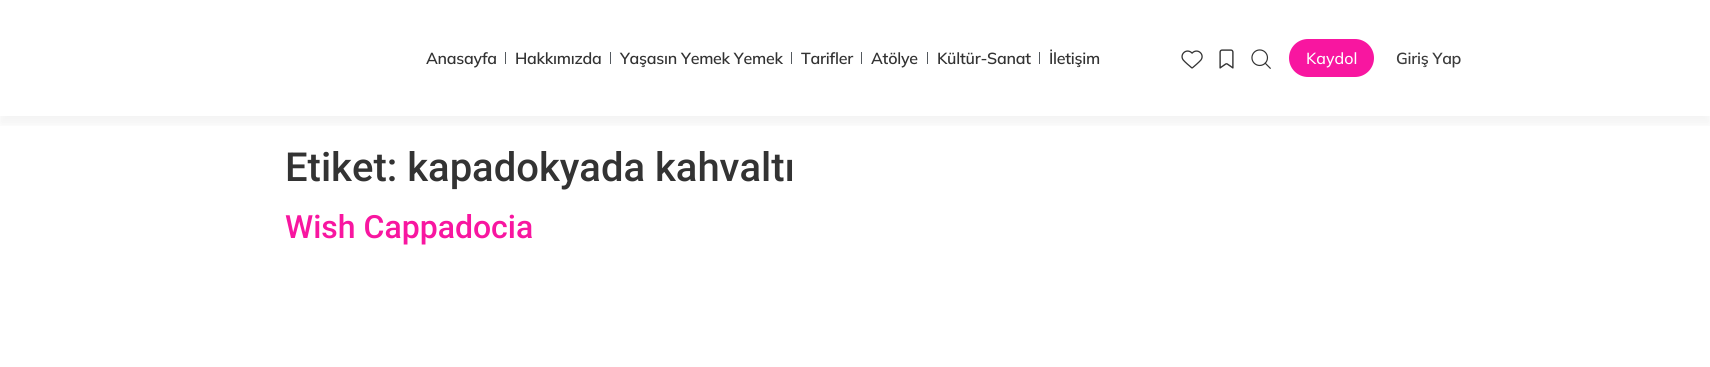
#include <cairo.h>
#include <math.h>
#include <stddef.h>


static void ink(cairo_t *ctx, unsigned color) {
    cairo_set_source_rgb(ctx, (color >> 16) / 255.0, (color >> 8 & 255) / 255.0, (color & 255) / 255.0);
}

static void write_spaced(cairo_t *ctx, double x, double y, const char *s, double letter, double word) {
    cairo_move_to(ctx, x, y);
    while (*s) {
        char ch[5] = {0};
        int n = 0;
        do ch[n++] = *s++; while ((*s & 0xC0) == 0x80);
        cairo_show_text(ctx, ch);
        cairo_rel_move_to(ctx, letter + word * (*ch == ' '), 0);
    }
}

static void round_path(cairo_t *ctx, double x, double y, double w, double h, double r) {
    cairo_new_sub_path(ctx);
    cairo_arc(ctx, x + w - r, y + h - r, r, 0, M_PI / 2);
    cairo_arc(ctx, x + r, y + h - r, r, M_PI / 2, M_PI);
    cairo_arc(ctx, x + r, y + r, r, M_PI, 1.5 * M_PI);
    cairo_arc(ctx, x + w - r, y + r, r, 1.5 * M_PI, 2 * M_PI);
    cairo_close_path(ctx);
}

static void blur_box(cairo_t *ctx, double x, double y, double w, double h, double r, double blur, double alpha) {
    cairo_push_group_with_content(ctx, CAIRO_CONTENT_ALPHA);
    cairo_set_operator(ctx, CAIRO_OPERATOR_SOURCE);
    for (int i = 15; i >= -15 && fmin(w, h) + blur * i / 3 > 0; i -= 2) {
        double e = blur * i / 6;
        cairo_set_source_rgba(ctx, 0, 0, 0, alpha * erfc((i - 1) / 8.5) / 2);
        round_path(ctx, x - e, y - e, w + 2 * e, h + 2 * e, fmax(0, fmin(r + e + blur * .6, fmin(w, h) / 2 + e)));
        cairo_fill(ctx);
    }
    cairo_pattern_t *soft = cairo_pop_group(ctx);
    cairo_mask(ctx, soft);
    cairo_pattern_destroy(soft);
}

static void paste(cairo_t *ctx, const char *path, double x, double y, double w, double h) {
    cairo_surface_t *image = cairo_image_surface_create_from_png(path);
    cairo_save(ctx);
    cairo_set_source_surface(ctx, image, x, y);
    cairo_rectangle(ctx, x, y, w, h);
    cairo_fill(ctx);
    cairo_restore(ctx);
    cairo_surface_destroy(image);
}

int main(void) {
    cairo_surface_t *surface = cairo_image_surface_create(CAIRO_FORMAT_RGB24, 1710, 367);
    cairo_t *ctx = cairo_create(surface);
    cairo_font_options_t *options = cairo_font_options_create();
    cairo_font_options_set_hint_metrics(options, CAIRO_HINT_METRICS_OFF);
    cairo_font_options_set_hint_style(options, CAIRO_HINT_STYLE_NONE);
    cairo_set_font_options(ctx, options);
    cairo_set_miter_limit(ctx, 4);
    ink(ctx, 0xFFFFFF);
    cairo_paint(ctx);
    cairo_save(ctx);
    cairo_rectangle(ctx, 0, 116, 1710, 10);
    cairo_clip(ctx);
    ink(ctx, 0x000000);
    blur_box(ctx, 0, 8, 1710, 116, 0, 6, 0.05);
    cairo_restore(ctx);
    cairo_select_font_face(ctx, "Mulish SemiBold", CAIRO_FONT_SLANT_NORMAL, CAIRO_FONT_WEIGHT_NORMAL);
    cairo_set_font_size(ctx, 16);
    ink(ctx, 0x333333);
    write_spaced(ctx, 426, 64, "Anasayfa", -0.25, 0);
    ink(ctx, 0x54595F);
    cairo_rectangle(ctx, 505, 52, 1, 12);
    cairo_fill(ctx);
    ink(ctx, 0x333333);
    write_spaced(ctx, 515, 64, "Hakkımızda", -0.25, 0);
    ink(ctx, 0x54595F);
    cairo_rectangle(ctx, 610, 52, 1, 12);
    cairo_fill(ctx);
    ink(ctx, 0x333333);
    write_spaced(ctx, 620, 64, "Yaşasın Yemek Yemek", -0.25, 0);
    ink(ctx, 0x54595F);
    cairo_rectangle(ctx, 791, 52, 1, 12);
    cairo_fill(ctx);
    ink(ctx, 0x333333);
    write_spaced(ctx, 801, 64, "Tarifler", -0.25, 0);
    ink(ctx, 0x54595F);
    cairo_rectangle(ctx, 861, 52, 1, 12);
    cairo_fill(ctx);
    ink(ctx, 0x333333);
    write_spaced(ctx, 871, 64, "Atölye", -0.25, 0);
    ink(ctx, 0x54595F);
    cairo_rectangle(ctx, 927, 52, 1, 12);
    cairo_fill(ctx);
    ink(ctx, 0x333333);
    write_spaced(ctx, 937, 64, "Kültür-Sanat", -0.25, 0);
    ink(ctx, 0x54595F);
    cairo_rectangle(ctx, 1039, 52, 1, 12);
    cairo_fill(ctx);
    ink(ctx, 0x333333);
    write_spaced(ctx, 1049, 64, "İletişim", -0.25, 0);
    paste(ctx, "media/1.png", 1181, 50, 22, 19);
    paste(ctx, "media/2.png", 1219, 49, 15, 20);
    paste(ctx, "media/3.png", 1251, 49, 20, 20);
    ink(ctx, 0xF816A0);
    round_path(ctx, 1289, 39, 85, 38, 19);
    cairo_fill(ctx);
    cairo_select_font_face(ctx, "Mulish Medium", CAIRO_FONT_SLANT_NORMAL, CAIRO_FONT_WEIGHT_NORMAL);
    ink(ctx, 0xFFFFFF);
    cairo_move_to(ctx, 1306, 64);
    cairo_show_text(ctx, "Kaydol");
    cairo_select_font_face(ctx, "Mulish SemiBold", CAIRO_FONT_SLANT_NORMAL, CAIRO_FONT_WEIGHT_NORMAL);
    ink(ctx, 0x3B3B3B);
    write_spaced(ctx, 1396, 64, "Giriş Yap", -0.25, 0);
    cairo_select_font_face(ctx, "Roboto Medium", CAIRO_FONT_SLANT_NORMAL, CAIRO_FONT_WEIGHT_NORMAL);
    cairo_set_font_size(ctx, 40);
    ink(ctx, 0x333333);
    cairo_move_to(ctx, 285, 181);
    cairo_show_text(ctx, "Etiket: kapadokyada kahvaltı");
    cairo_set_font_size(ctx, 32);
    ink(ctx, 0xF816A0);
    cairo_move_to(ctx, 285, 238);
    cairo_show_text(ctx, "Wish Cappadocia");
    cairo_surface_write_to_png(surface, "image.png");
    cairo_font_options_destroy(options);
    cairo_destroy(ctx);
    cairo_surface_destroy(surface);
    return 0;
}
